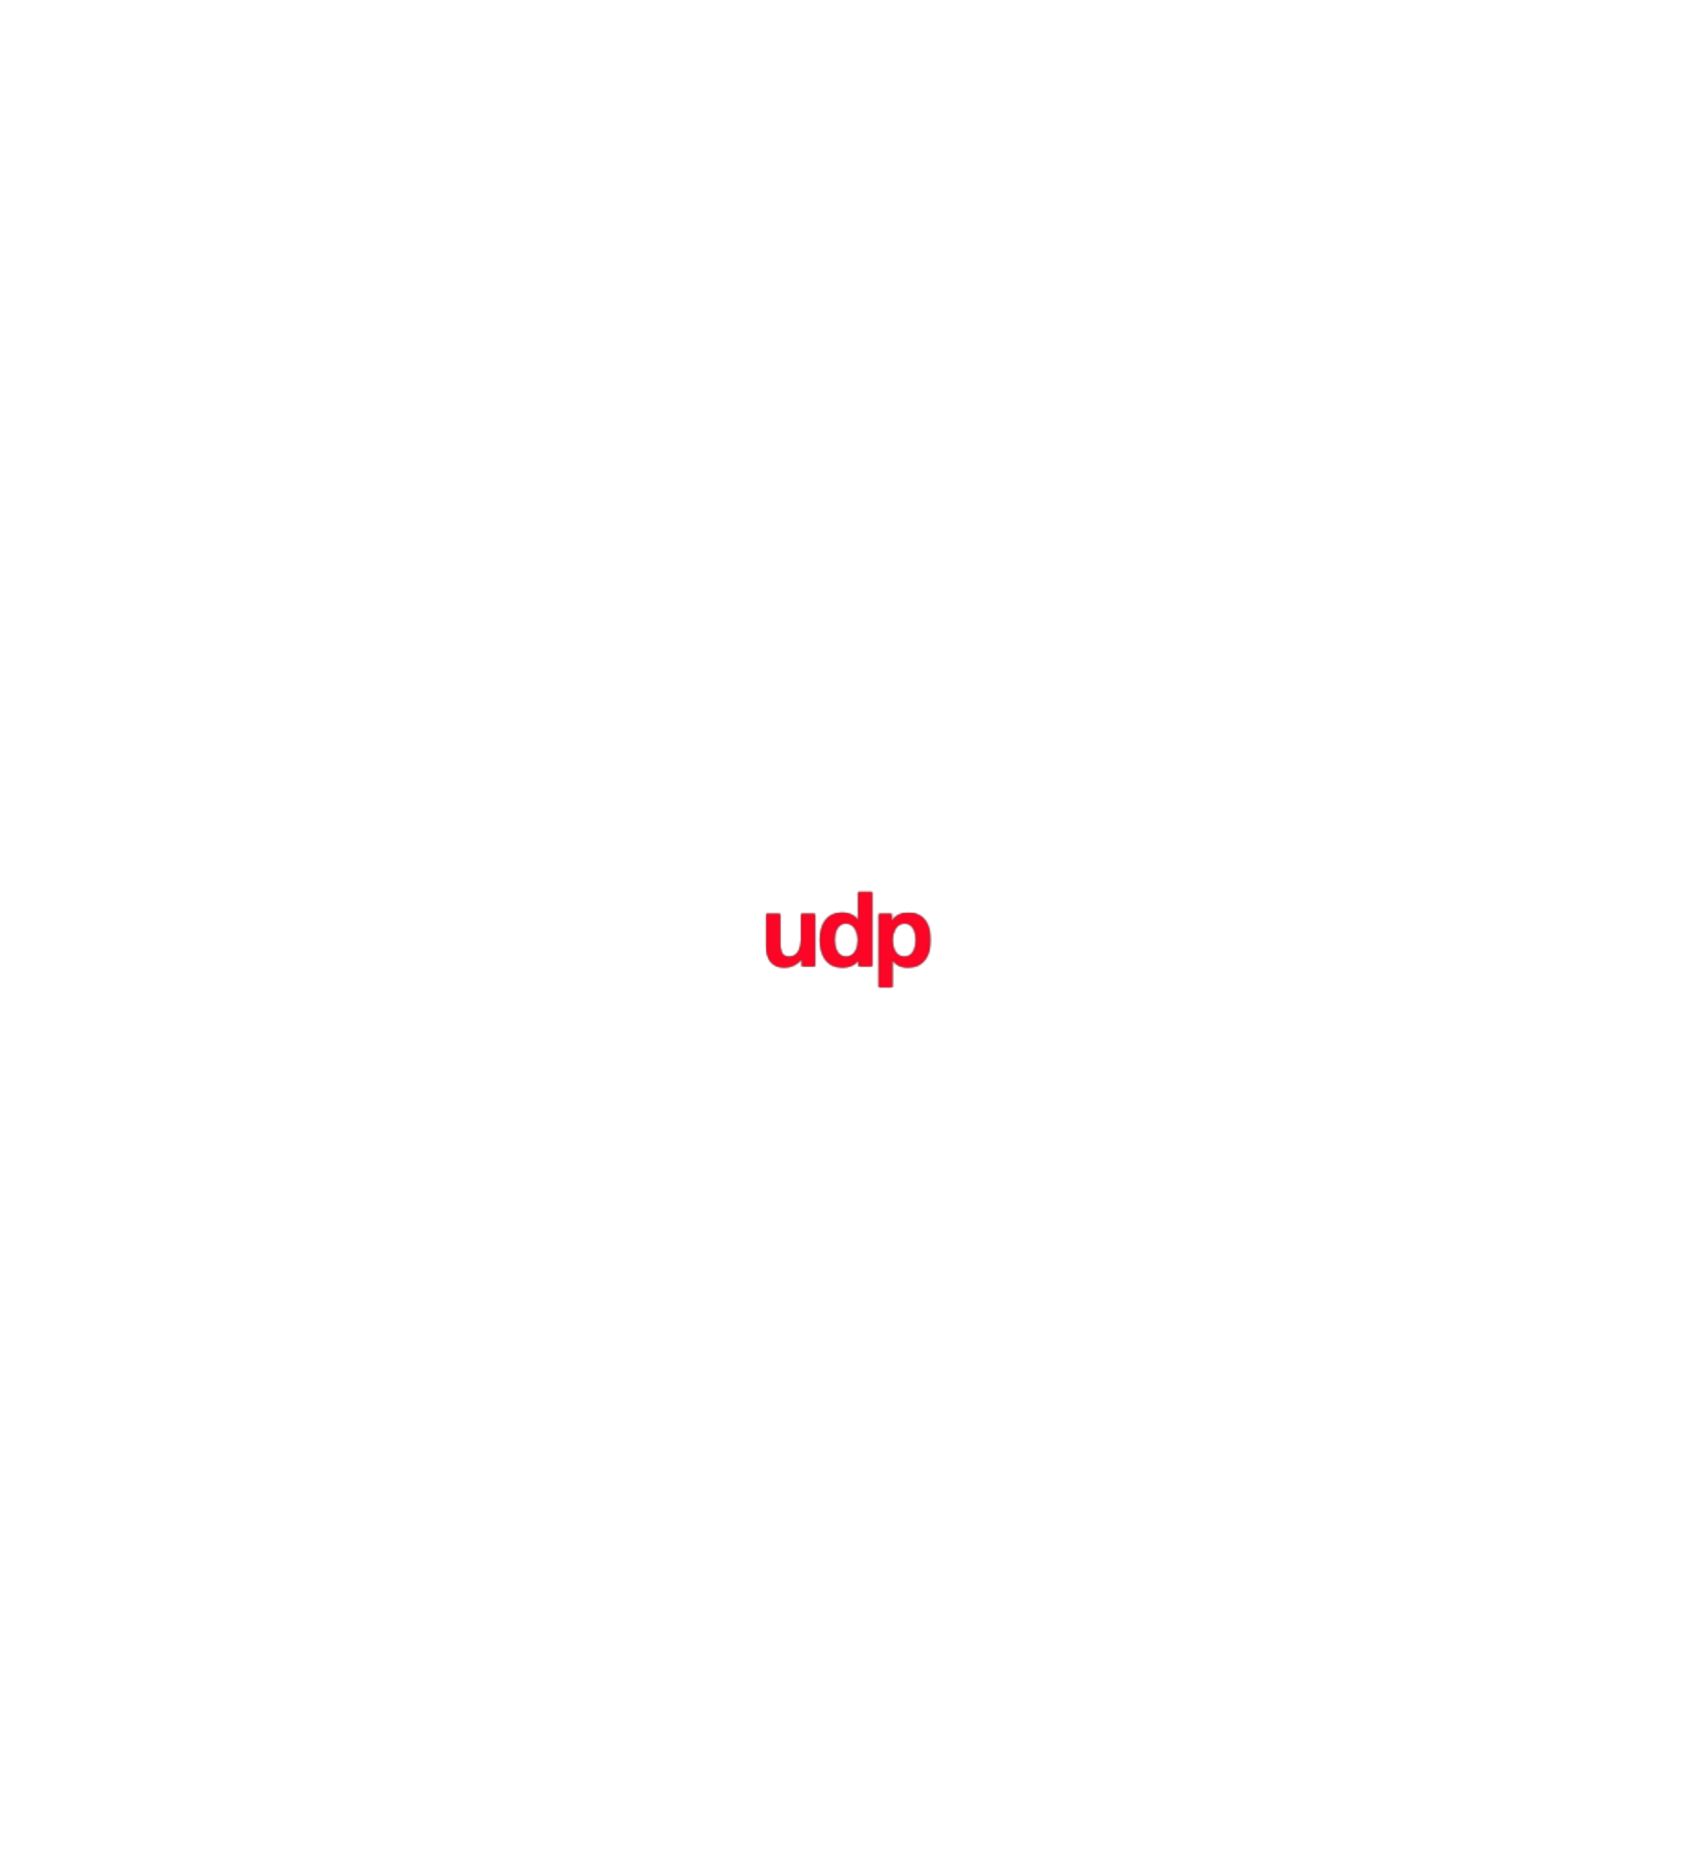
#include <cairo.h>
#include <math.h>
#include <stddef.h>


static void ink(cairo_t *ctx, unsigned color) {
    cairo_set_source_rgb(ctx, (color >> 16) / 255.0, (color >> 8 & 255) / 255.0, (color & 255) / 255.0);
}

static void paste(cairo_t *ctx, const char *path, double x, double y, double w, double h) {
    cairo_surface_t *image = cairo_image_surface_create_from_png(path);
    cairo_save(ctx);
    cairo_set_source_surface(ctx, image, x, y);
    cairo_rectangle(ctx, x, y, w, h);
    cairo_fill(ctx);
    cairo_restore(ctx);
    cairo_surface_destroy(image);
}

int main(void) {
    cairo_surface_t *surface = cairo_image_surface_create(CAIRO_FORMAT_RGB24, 1692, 1876);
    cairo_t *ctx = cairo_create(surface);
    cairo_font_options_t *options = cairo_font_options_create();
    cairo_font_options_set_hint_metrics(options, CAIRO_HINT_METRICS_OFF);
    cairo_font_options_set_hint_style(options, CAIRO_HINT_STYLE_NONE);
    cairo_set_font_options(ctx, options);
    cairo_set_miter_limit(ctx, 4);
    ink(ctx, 0xFFFFFF);
    cairo_paint(ctx);
    paste(ctx, "media/1.png", 764, 890, 168, 99);
    paste(ctx, "media/2.png", 764, 890, 168, 99);
    cairo_surface_write_to_png(surface, "image.png");
    cairo_font_options_destroy(options);
    cairo_destroy(ctx);
    cairo_surface_destroy(surface);
    return 0;
}
